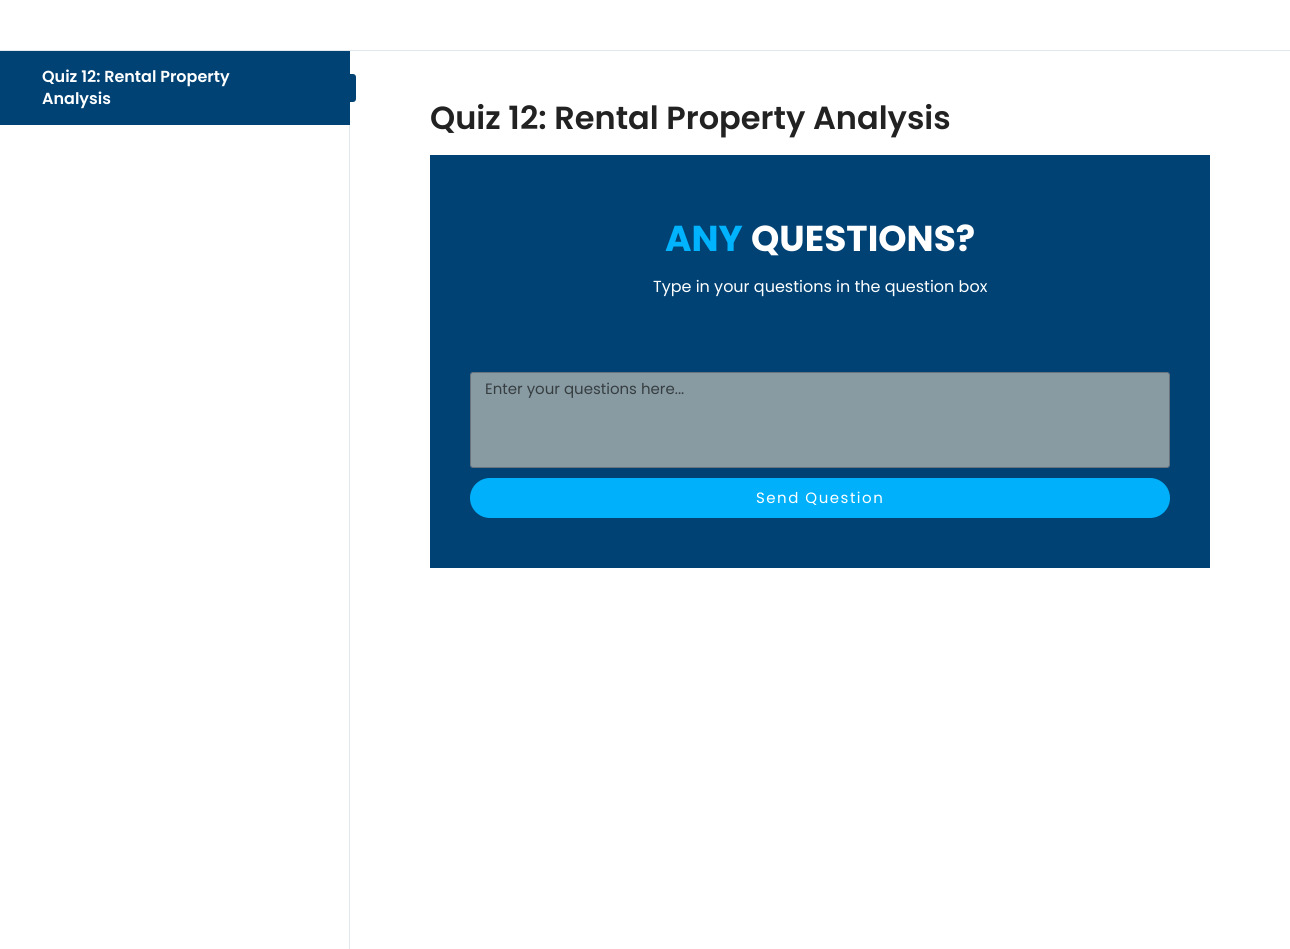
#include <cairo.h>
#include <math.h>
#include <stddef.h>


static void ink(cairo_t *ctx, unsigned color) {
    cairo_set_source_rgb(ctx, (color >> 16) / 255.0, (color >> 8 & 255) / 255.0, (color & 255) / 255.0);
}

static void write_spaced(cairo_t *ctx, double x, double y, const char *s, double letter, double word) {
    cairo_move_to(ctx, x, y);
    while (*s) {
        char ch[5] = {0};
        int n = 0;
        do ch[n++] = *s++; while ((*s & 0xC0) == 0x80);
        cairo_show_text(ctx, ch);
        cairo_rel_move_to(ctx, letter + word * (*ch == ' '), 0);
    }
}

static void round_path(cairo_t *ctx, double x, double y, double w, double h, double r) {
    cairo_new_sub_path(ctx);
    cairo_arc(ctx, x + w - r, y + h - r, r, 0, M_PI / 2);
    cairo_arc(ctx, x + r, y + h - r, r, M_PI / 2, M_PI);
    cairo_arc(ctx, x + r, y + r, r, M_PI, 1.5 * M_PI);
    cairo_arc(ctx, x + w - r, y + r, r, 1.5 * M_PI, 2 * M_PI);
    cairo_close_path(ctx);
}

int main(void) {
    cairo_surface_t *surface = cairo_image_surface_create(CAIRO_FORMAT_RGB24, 1290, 949);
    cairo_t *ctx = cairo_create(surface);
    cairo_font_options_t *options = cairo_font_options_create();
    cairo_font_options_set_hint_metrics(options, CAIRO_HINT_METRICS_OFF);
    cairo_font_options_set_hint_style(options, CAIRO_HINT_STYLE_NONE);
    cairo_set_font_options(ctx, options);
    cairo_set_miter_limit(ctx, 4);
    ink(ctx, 0xFFFFFF);
    cairo_paint(ctx);
    ink(ctx, 0xE2E7ED);
    cairo_rectangle(ctx, 349, 125, 1, 824);
    cairo_fill(ctx);
    ink(ctx, 0x004274);
    cairo_rectangle(ctx, 0, 51, 350, 74);
    cairo_fill(ctx);
    cairo_select_font_face(ctx, "Poppins SemiBold", CAIRO_FONT_SLANT_NORMAL, CAIRO_FONT_WEIGHT_NORMAL);
    cairo_set_font_size(ctx, 16);
    ink(ctx, 0xFFFFFF);
    cairo_move_to(ctx, 42, 82);
    cairo_show_text(ctx, "Quiz 12: Rental Property");
    cairo_move_to(ctx, 42, 104);
    cairo_show_text(ctx, "Analysis");
    ink(ctx, 0x004274);
    round_path(ctx, 330, 74, 26, 28, 3);
    cairo_fill(ctx);
    ink(ctx, 0xE2E7ED);
    cairo_rectangle(ctx, 0, 50, 1290, 1);
    cairo_fill(ctx);
    cairo_set_font_size(ctx, 32);
    ink(ctx, 0x222222);
    cairo_move_to(ctx, 430, 129);
    cairo_show_text(ctx, "Quiz 12: Rental Property Analysis");
    ink(ctx, 0x004274);
    cairo_rectangle(ctx, 430, 155, 780, 413);
    cairo_fill(ctx);
    cairo_select_font_face(ctx, "Poppins", CAIRO_FONT_SLANT_NORMAL, CAIRO_FONT_WEIGHT_BOLD);
    cairo_set_font_size(ctx, 36);
    ink(ctx, 0x00B3FF);
    cairo_move_to(ctx, 665, 251);
    cairo_show_text(ctx, "ANY");
    ink(ctx, 0xFFFFFF);
    cairo_move_to(ctx, 751, 251);
    cairo_show_text(ctx, "QUESTIONS?");
    cairo_select_font_face(ctx, "Poppins", CAIRO_FONT_SLANT_NORMAL, CAIRO_FONT_WEIGHT_NORMAL);
    cairo_set_font_size(ctx, 16);
    cairo_move_to(ctx, 653, 292);
    cairo_show_text(ctx, "Type in your questions in the question box");
    ink(ctx, 0x889AA2);
    round_path(ctx, 470.5, 372.5, 699, 95, 2.5);
    cairo_fill_preserve(ctx);
    ink(ctx, 0x69727D);
    cairo_set_line_width(ctx, 1);
    cairo_stroke(ctx);
    cairo_set_font_size(ctx, 15);
    ink(ctx, 0x363E41);
    cairo_move_to(ctx, 485, 394);
    cairo_show_text(ctx, "Enter your questions here...");
    ink(ctx, 0x00B0FA);
    round_path(ctx, 470, 478, 700, 40, 20);
    cairo_fill(ctx);
    ink(ctx, 0xFFFFFF);
    write_spaced(ctx, 756, 503, "Send Question", 1.5, 0);
    cairo_surface_write_to_png(surface, "image.png");
    cairo_font_options_destroy(options);
    cairo_destroy(ctx);
    cairo_surface_destroy(surface);
    return 0;
}
